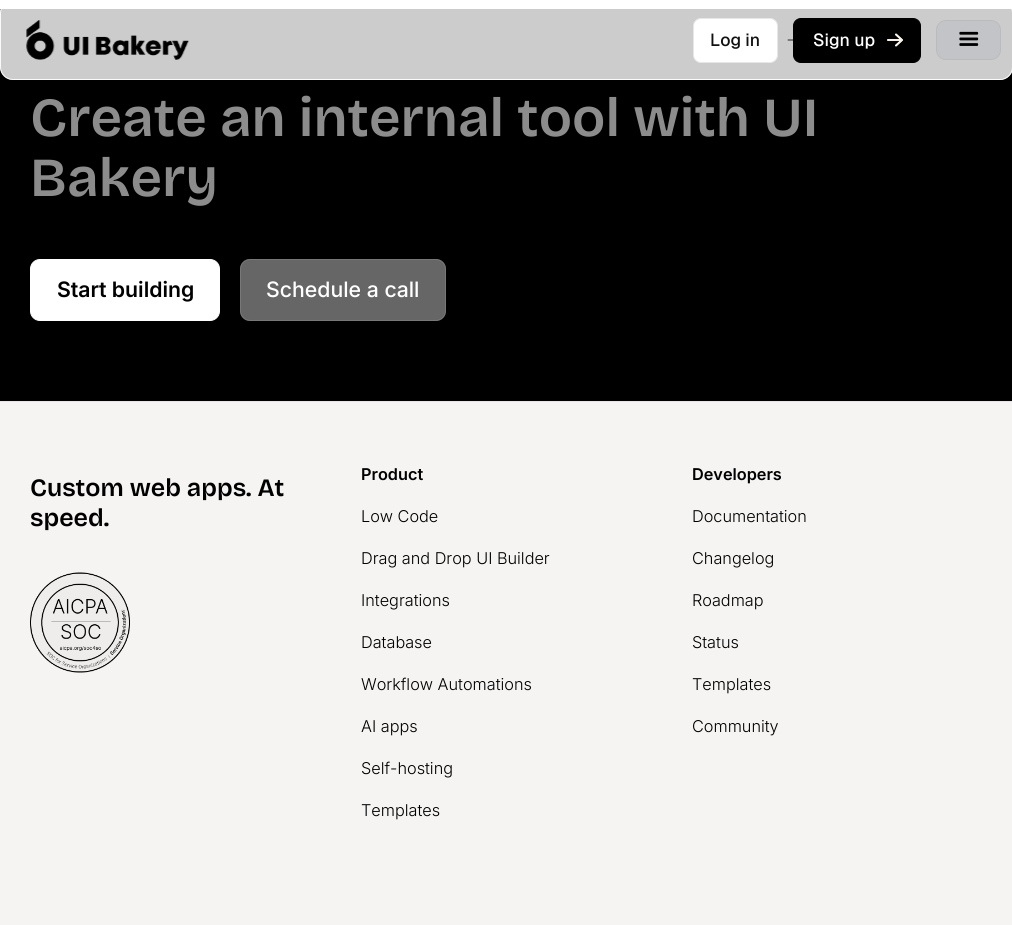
#include <cairo.h>
#include <math.h>
#include <stddef.h>

typedef struct { double x, y; const char *s; } line_t;

static void ink(cairo_t *ctx, unsigned color) {
    cairo_set_source_rgb(ctx, (color >> 16) / 255.0, (color >> 8 & 255) / 255.0, (color & 255) / 255.0);
}

static void round_path(cairo_t *ctx, double x, double y, double w, double h, double r) {
    cairo_new_sub_path(ctx);
    cairo_arc(ctx, x + w - r, y + h - r, r, 0, M_PI / 2);
    cairo_arc(ctx, x + r, y + h - r, r, M_PI / 2, M_PI);
    cairo_arc(ctx, x + r, y + r, r, M_PI, 1.5 * M_PI);
    cairo_arc(ctx, x + w - r, y + r, r, 1.5 * M_PI, 2 * M_PI);
    cairo_close_path(ctx);
}

static void paste(cairo_t *ctx, const char *path, double x, double y, double w, double h) {
    cairo_surface_t *image = cairo_image_surface_create_from_png(path);
    cairo_save(ctx);
    cairo_set_source_surface(ctx, image, x, y);
    cairo_rectangle(ctx, x, y, w, h);
    cairo_fill(ctx);
    cairo_restore(ctx);
    cairo_surface_destroy(image);
}

int main(void) {
    cairo_surface_t *surface = cairo_image_surface_create(CAIRO_FORMAT_RGB24, 1012, 925);
    cairo_t *ctx = cairo_create(surface);
    cairo_font_options_t *options = cairo_font_options_create();
    cairo_font_options_set_hint_metrics(options, CAIRO_HINT_METRICS_OFF);
    cairo_font_options_set_hint_style(options, CAIRO_HINT_STYLE_NONE);
    cairo_set_font_options(ctx, options);
    cairo_set_miter_limit(ctx, 4);
    ink(ctx, 0xFFFFFF);
    cairo_paint(ctx);
    ink(ctx, 0x000000);
    cairo_rectangle(ctx, 0, 9, 1012, 392);
    cairo_fill(ctx);
    cairo_set_source_rgba(ctx, 1, 1, 1, 0.8);
    round_path(ctx, 0, 0, 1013, 80, 13);
    cairo_fill(ctx);
    round_path(ctx, 0.5, 0.5, 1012, 79, 12.5);
    cairo_set_source_rgba(ctx, 1, 1, 1, 0.9);
    cairo_set_line_width(ctx, 1);
    cairo_stroke(ctx);
    paste(ctx, "media/1.png", 26, 20, 163, 40);
    ink(ctx, 0xFFFFFF);
    round_path(ctx, 693.5, 18.5, 84, 44, 7.5);
    cairo_fill_preserve(ctx);
    ink(ctx, 0xE7E7E7);
    cairo_stroke(ctx);
    cairo_select_font_face(ctx, "Geist Medium", CAIRO_FONT_SLANT_NORMAL, CAIRO_FONT_WEIGHT_NORMAL);
    cairo_set_font_size(ctx, 17.5);
    ink(ctx, 0x111111);
    cairo_move_to(ctx, 710, 46);
    cairo_show_text(ctx, "Log in");
    ink(ctx, 0x000000);
    round_path(ctx, 793.5, 18.5, 127, 44, 7.5);
    cairo_fill_preserve(ctx);
    cairo_stroke(ctx);
    cairo_new_path(ctx);
    cairo_move_to(ctx, 788, 40);
    cairo_line_to(ctx, 802, 40);
    cairo_move_to(ctx, 796, 34.5);
    cairo_line_to(ctx, 802, 40);
    cairo_line_to(ctx, 796, 45.5);
    cairo_set_line_width(ctx, 0.8);
    cairo_set_line_cap(ctx, CAIRO_LINE_CAP_ROUND);
    cairo_set_line_join(ctx, CAIRO_LINE_JOIN_ROUND);
    cairo_stroke(ctx);
    ink(ctx, 0xFFFFFF);
    cairo_move_to(ctx, 813, 46);
    cairo_show_text(ctx, "Sign up");
    cairo_new_path(ctx);
    cairo_move_to(ctx, 888, 40);
    cairo_line_to(ctx, 902, 40);
    cairo_move_to(ctx, 896, 34.5);
    cairo_line_to(ctx, 902, 40);
    cairo_line_to(ctx, 896, 45.5);
    ink(ctx, 0xF9F4EB);
    cairo_set_line_width(ctx, 1.9);
    cairo_stroke(ctx);
    cairo_new_path(ctx);
    cairo_move_to(ctx, 888, 40);
    cairo_line_to(ctx, 902, 40);
    cairo_move_to(ctx, 896, 34.5);
    cairo_line_to(ctx, 902, 40);
    cairo_line_to(ctx, 896, 45.5);
    cairo_move_to(ctx, 888, 40);
    cairo_line_to(ctx, 902, 40);
    cairo_move_to(ctx, 896, 34.5);
    cairo_line_to(ctx, 902, 40);
    cairo_line_to(ctx, 896, 45.5);
    cairo_move_to(ctx, 888, 40);
    cairo_line_to(ctx, 902, 40);
    cairo_move_to(ctx, 896, 34.5);
    cairo_line_to(ctx, 902, 40);
    cairo_line_to(ctx, 896, 45.5);
    cairo_set_line_width(ctx, 1.6);
    cairo_stroke(ctx);
    ink(ctx, 0xC3C4C7);
    round_path(ctx, 936, 20, 65, 40, 10);
    cairo_fill(ctx);
    round_path(ctx, 936.5, 20.5, 64, 39, 9.5);
    cairo_set_source_rgba(ctx, 0.549, 0.549, 0.549, 0.16);
    cairo_set_line_width(ctx, 1);
    cairo_set_line_cap(ctx, CAIRO_LINE_CAP_BUTT);
    cairo_set_line_join(ctx, CAIRO_LINE_JOIN_MITER);
    cairo_stroke(ctx);
    paste(ctx, "media/2.png", 959, 31, 20, 15);
    cairo_select_font_face(ctx, "Bricolage Grotesque SemiBold", CAIRO_FONT_SLANT_NORMAL, CAIRO_FONT_WEIGHT_NORMAL);
    cairo_set_font_size(ctx, 55);
    ink(ctx, 0x8C8C8C);
    cairo_move_to(ctx, 30, 136);
    cairo_show_text(ctx, "Create an internal tool with UI");
    cairo_move_to(ctx, 30, 196);
    cairo_show_text(ctx, "Bakery");
    ink(ctx, 0xFFFFFF);
    round_path(ctx, 30.5, 259.5, 189, 61, 9.5);
    cairo_fill_preserve(ctx);
    cairo_stroke(ctx);
    cairo_select_font_face(ctx, "Inter SemiBold", CAIRO_FONT_SLANT_NORMAL, CAIRO_FONT_WEIGHT_NORMAL);
    cairo_set_font_size(ctx, 21.25);
    ink(ctx, 0x000000);
    cairo_move_to(ctx, 57, 297);
    cairo_show_text(ctx, "Start building");
    ink(ctx, 0x666666);
    round_path(ctx, 240, 259, 206, 62, 10);
    cairo_fill(ctx);
    round_path(ctx, 240.5, 259.5, 205, 61, 9.5);
    cairo_set_source_rgba(ctx, 0.549, 0.549, 0.549, 0.48);
    cairo_stroke(ctx);
    cairo_select_font_face(ctx, "Inter Medium", CAIRO_FONT_SLANT_NORMAL, CAIRO_FONT_WEIGHT_NORMAL);
    ink(ctx, 0xFFFFFF);
    cairo_move_to(ctx, 266, 297);
    cairo_show_text(ctx, "Schedule a call");
    ink(ctx, 0xF5F4F3);
    cairo_rectangle(ctx, 0, 402, 1012, 523);
    cairo_fill(ctx);
    ink(ctx, 0xE6E6E8);
    cairo_rectangle(ctx, 0, 401, 1012, 1);
    cairo_fill(ctx);
    cairo_select_font_face(ctx, "Bricolage Grotesque SemiBold", CAIRO_FONT_SLANT_NORMAL, CAIRO_FONT_WEIGHT_NORMAL);
    cairo_set_font_size(ctx, 25);
    ink(ctx, 0x000000);
    cairo_move_to(ctx, 30, 496);
    cairo_show_text(ctx, "Custom web apps. At");
    cairo_move_to(ctx, 30, 526);
    cairo_show_text(ctx, "speed.");
    paste(ctx, "media/3.png", 30, 572, 100, 101);
    cairo_select_font_face(ctx, "Inter SemiBold", CAIRO_FONT_SLANT_NORMAL, CAIRO_FONT_WEIGHT_NORMAL);
    cairo_set_font_size(ctx, 16.25);
    cairo_move_to(ctx, 361, 480);
    cairo_show_text(ctx, "Product");
    cairo_select_font_face(ctx, "Inter Light", CAIRO_FONT_SLANT_NORMAL, CAIRO_FONT_WEIGHT_NORMAL);
    {
        static const line_t items[] = {
            {361, 522, "Low Code"},
            {361, 564, "Drag and Drop UI Builder"},
            {361, 606, "Integrations"},
            {361, 648, "Database"},
            {361, 690, "Workflow Automations"},
            {361, 732, "AI apps"},
            {361, 774, "Self-hosting"},
            {361, 816, "Templates"},
        };
        for (size_t i = 0; i < sizeof items / sizeof *items; i++) {
            cairo_move_to(ctx, items[i].x, items[i].y);
            cairo_show_text(ctx, items[i].s);
        }
    }
    cairo_select_font_face(ctx, "Inter SemiBold", CAIRO_FONT_SLANT_NORMAL, CAIRO_FONT_WEIGHT_NORMAL);
    cairo_move_to(ctx, 692, 480);
    cairo_show_text(ctx, "Developers");
    cairo_select_font_face(ctx, "Inter Light", CAIRO_FONT_SLANT_NORMAL, CAIRO_FONT_WEIGHT_NORMAL);
    {
        static const line_t items[] = {
            {692, 522, "Documentation"},
            {692, 564, "Changelog"},
            {692, 606, "Roadmap"},
            {692, 648, "Status"},
            {692, 690, "Templates"},
            {692, 732, "Community"},
        };
        for (size_t i = 0; i < sizeof items / sizeof *items; i++) {
            cairo_move_to(ctx, items[i].x, items[i].y);
            cairo_show_text(ctx, items[i].s);
        }
    }
    cairo_surface_write_to_png(surface, "image.png");
    cairo_font_options_destroy(options);
    cairo_destroy(ctx);
    cairo_surface_destroy(surface);
    return 0;
}
